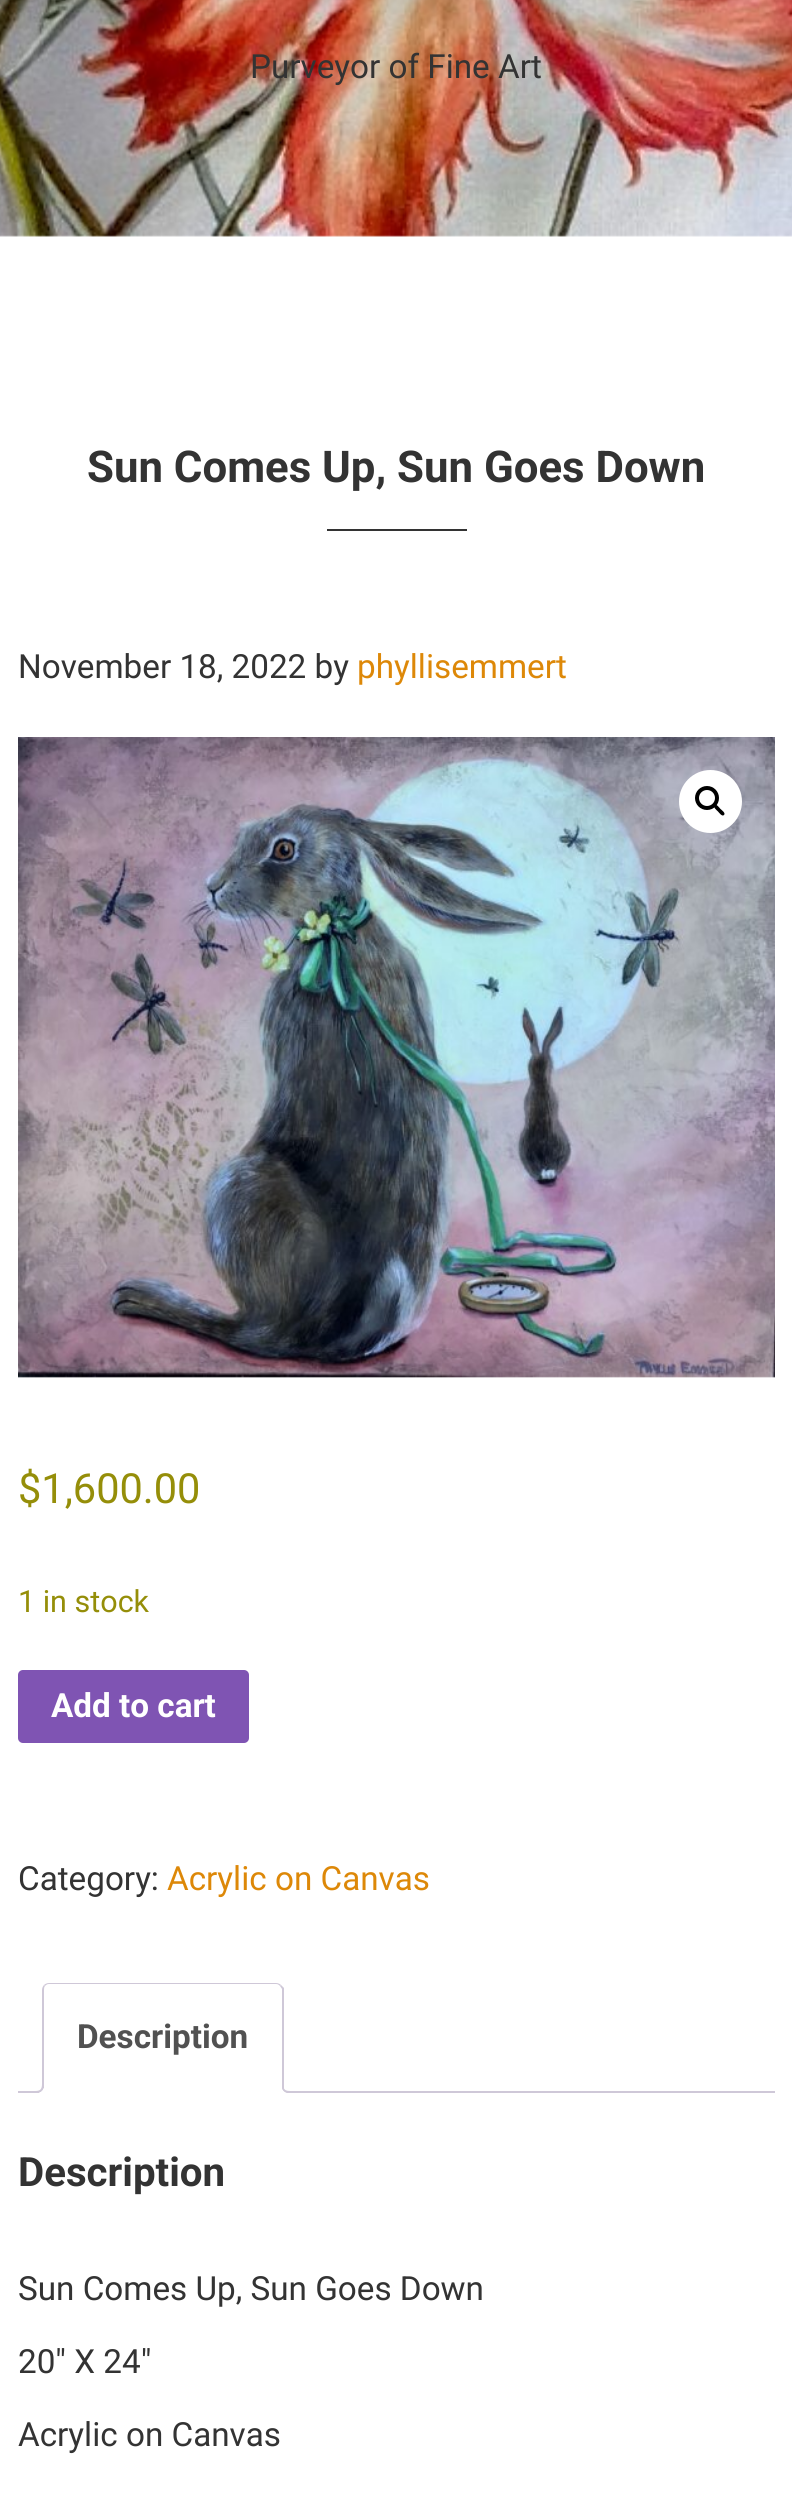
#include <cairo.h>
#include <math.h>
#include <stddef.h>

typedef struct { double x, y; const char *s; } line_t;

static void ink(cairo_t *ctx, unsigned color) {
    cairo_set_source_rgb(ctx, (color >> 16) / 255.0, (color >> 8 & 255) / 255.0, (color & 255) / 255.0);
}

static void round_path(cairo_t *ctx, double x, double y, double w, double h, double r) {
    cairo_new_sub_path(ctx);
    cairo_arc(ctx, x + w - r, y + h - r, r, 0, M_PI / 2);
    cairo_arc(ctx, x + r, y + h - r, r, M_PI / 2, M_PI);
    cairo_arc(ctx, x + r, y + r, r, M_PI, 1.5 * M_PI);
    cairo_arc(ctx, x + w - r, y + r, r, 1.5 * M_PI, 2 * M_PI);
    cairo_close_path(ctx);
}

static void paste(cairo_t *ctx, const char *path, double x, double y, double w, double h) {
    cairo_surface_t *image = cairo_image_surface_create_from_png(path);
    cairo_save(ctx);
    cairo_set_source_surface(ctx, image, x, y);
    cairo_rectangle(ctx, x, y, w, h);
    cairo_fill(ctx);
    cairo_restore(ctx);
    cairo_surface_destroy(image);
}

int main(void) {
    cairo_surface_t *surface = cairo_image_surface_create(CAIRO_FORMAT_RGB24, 792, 2507);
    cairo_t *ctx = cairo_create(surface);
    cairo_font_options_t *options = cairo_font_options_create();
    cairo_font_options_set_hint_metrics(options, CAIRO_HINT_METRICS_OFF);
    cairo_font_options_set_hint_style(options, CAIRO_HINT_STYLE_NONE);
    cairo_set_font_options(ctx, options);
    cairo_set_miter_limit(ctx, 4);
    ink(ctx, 0xFFFFFF);
    cairo_paint(ctx);
    paste(ctx, "media/1.png", 0, 0, 792, 237);
    cairo_select_font_face(ctx, "Roboto", CAIRO_FONT_SLANT_NORMAL, CAIRO_FONT_WEIGHT_NORMAL);
    cairo_set_font_size(ctx, 33.25);
    ink(ctx, 0x333333);
    cairo_move_to(ctx, 250, 78);
    cairo_show_text(ctx, "Purveyor of Fine Art");
    cairo_select_font_face(ctx, "Roboto", CAIRO_FONT_SLANT_NORMAL, CAIRO_FONT_WEIGHT_BOLD);
    cairo_set_font_size(ctx, 43.75);
    cairo_move_to(ctx, 87, 482);
    cairo_show_text(ctx, "Sun Comes Up, Sun Goes Down");
    cairo_rectangle(ctx, 327, 529, 140, 2);
    cairo_fill(ctx);
    cairo_select_font_face(ctx, "Roboto", CAIRO_FONT_SLANT_NORMAL, CAIRO_FONT_WEIGHT_NORMAL);
    cairo_set_font_size(ctx, 33.25);
    cairo_move_to(ctx, 18, 678);
    cairo_show_text(ctx, "November 18, 2022 by");
    ink(ctx, 0xDD8808);
    cairo_move_to(ctx, 357, 678);
    cairo_show_text(ctx, "phyllisemmert");
    paste(ctx, "media/2.png", 18, 737, 757, 641);
    ink(ctx, 0xFFFFFF);
    cairo_arc(ctx, 710.5, 801.5, 31.5, 0, 2 * M_PI);
    cairo_fill(ctx);
    cairo_arc(ctx, 707, 798, 10, 0, 2 * M_PI);
    ink(ctx, 0x000000);
    cairo_set_line_width(ctx, 4);
    cairo_stroke(ctx);
    cairo_new_path(ctx);
    cairo_move_to(ctx, 714.5, 805);
    cairo_curve_to(ctx, 716.5, 803.5, 719.5, 808, 720.5, 809);
    cairo_curve_to(ctx, 721.5, 810, 726, 813, 724, 815);
    cairo_curve_to(ctx, 722, 817, 719, 812.5, 718, 811.5);
    cairo_curve_to(ctx, 717, 810.5, 712.5, 807, 714.5, 805);
    cairo_close_path(ctx);
    cairo_fill(ctx);
    cairo_set_font_size(ctx, 41.5);
    ink(ctx, 0x958E09);
    cairo_move_to(ctx, 18, 1503);
    cairo_show_text(ctx, "$1,600.00");
    cairo_set_font_size(ctx, 30.5);
    cairo_move_to(ctx, 18, 1612);
    cairo_show_text(ctx, "1 in stock");
    ink(ctx, 0x7F54B3);
    round_path(ctx, 18, 1670, 231, 73, 5);
    cairo_fill(ctx);
    cairo_select_font_face(ctx, "Roboto", CAIRO_FONT_SLANT_NORMAL, CAIRO_FONT_WEIGHT_BOLD);
    cairo_set_font_size(ctx, 33.25);
    ink(ctx, 0xFFFFFF);
    cairo_move_to(ctx, 51, 1717);
    cairo_show_text(ctx, "Add to cart");
    cairo_select_font_face(ctx, "Roboto", CAIRO_FONT_SLANT_NORMAL, CAIRO_FONT_WEIGHT_NORMAL);
    ink(ctx, 0x333333);
    cairo_move_to(ctx, 18, 1890);
    cairo_show_text(ctx, "Category:");
    ink(ctx, 0xDD8808);
    cairo_move_to(ctx, 167, 1890);
    cairo_show_text(ctx, "Acrylic on Canvas");
    ink(ctx, 0xCFC8D8);
    cairo_rectangle(ctx, 18, 2091, 757, 2);
    cairo_fill(ctx);
    ink(ctx, 0xFFFFFF);
    cairo_new_path(ctx);
    cairo_move_to(ctx, 49, 1983);
    cairo_line_to(ctx, 277, 1983);
    cairo_curve_to(ctx, 281, 1983, 284, 1986, 284, 1990);
    cairo_line_to(ctx, 284, 2093);
    cairo_line_to(ctx, 42, 2093);
    cairo_line_to(ctx, 42, 1990);
    cairo_curve_to(ctx, 42, 1986, 45, 1983, 49, 1983);
    cairo_close_path(ctx);
    cairo_fill(ctx);
    ink(ctx, 0xCFC8D8);
    cairo_new_path(ctx);
    cairo_move_to(ctx, 49, 1983);
    cairo_curve_to(ctx, 47, 1983, 45, 1984, 44, 1985);
    cairo_line_to(ctx, 45, 1986);
    cairo_curve_to(ctx, 46, 1985, 47, 1984, 49, 1984);
    cairo_line_to(ctx, 276, 1984);
    cairo_curve_to(ctx, 278, 1984, 279, 1985, 280, 1986);
    cairo_line_to(ctx, 281, 1985);
    cairo_curve_to(ctx, 280, 1984, 278, 1983, 276, 1983);
    cairo_close_path(ctx);
    cairo_fill(ctx);
    cairo_new_path(ctx);
    cairo_move_to(ctx, 281, 1985);
    cairo_line_to(ctx, 284, 1988);
    cairo_line_to(ctx, 284, 2093);
    cairo_line_to(ctx, 282, 2091);
    cairo_line_to(ctx, 282, 1989);
    cairo_line_to(ctx, 280, 1986);
    cairo_close_path(ctx);
    cairo_fill(ctx);
    ink(ctx, 0xFFFFFF);
    cairo_new_path(ctx);
    cairo_move_to(ctx, 284, 2093);
    cairo_line_to(ctx, 282, 2091);
    cairo_line_to(ctx, 44, 2091);
    cairo_line_to(ctx, 42, 2093);
    cairo_close_path(ctx);
    cairo_fill(ctx);
    ink(ctx, 0xCFC8D8);
    cairo_new_path(ctx);
    cairo_move_to(ctx, 42, 2093);
    cairo_line_to(ctx, 44, 2091);
    cairo_line_to(ctx, 44, 1990);
    cairo_curve_to(ctx, 44, 1989, 44, 1987, 45, 1986);
    cairo_line_to(ctx, 44, 1985);
    cairo_curve_to(ctx, 43, 1986, 42, 1988, 42, 1990);
    cairo_close_path(ctx);
    cairo_fill(ctx);
    cairo_select_font_face(ctx, "Roboto", CAIRO_FONT_SLANT_NORMAL, CAIRO_FONT_WEIGHT_BOLD);
    ink(ctx, 0x515151);
    cairo_move_to(ctx, 77, 2048);
    cairo_show_text(ctx, "Description");
    cairo_save(ctx);
    cairo_rectangle(ctx, 18, 1983, 757, 110);
    cairo_clip(ctx);
    ink(ctx, 0xFFFFFF);
    cairo_new_path(ctx);
    cairo_move_to(ctx, 39, 2092.5);
    cairo_line_to(ctx, 39, 2097);
    cairo_curve_to(ctx, 45, 2097, 47, 2093.5, 47, 2088);
    cairo_line_to(ctx, 43.5, 2088);
    cairo_curve_to(ctx, 43, 2090, 41, 2092, 39, 2092.5);
    cairo_close_path(ctx);
    cairo_fill(ctx);
    cairo_restore(ctx);
    ink(ctx, 0xCFC8D8);
    cairo_set_fill_rule(ctx, CAIRO_FILL_RULE_EVEN_ODD);
    cairo_new_path(ctx);
    cairo_move_to(ctx, 35, 2084);
    cairo_line_to(ctx, 44, 2084);
    cairo_curve_to(ctx, 44, 2090.5, 41, 2093, 35, 2093);
    cairo_close_path(ctx);
    cairo_move_to(ctx, 35, 2084);
    cairo_line_to(ctx, 42, 2084);
    cairo_curve_to(ctx, 42, 2089.5, 40, 2091, 35, 2091);
    cairo_close_path(ctx);
    cairo_fill(ctx);
    cairo_save(ctx);
    cairo_set_fill_rule(ctx, CAIRO_FILL_RULE_WINDING);
    cairo_rectangle(ctx, 18, 1983, 757, 110);
    cairo_clip(ctx);
    ink(ctx, 0xFFFFFF);
    cairo_new_path(ctx);
    cairo_move_to(ctx, 278, 2088);
    cairo_curve_to(ctx, 278, 2094.5, 280.5, 2097, 287, 2097);
    cairo_line_to(ctx, 287, 2093);
    cairo_curve_to(ctx, 284.5, 2092, 282.5, 2090.5, 282, 2088);
    cairo_close_path(ctx);
    cairo_fill(ctx);
    cairo_restore(ctx);
    cairo_new_path(ctx);
    cairo_move_to(ctx, 282, 2084);
    cairo_line_to(ctx, 290.5, 2084);
    cairo_line_to(ctx, 290.5, 2093);
    cairo_curve_to(ctx, 286, 2093, 282, 2091.5, 282, 2086);
    cairo_close_path(ctx);
    cairo_move_to(ctx, 283.5, 2084);
    cairo_line_to(ctx, 290.5, 2084);
    cairo_line_to(ctx, 290.5, 2091);
    cairo_curve_to(ctx, 287, 2091, 283.5, 2090.5, 283.5, 2086);
    cairo_close_path(ctx);
    cairo_fill(ctx);
    cairo_set_font_size(ctx, 40.25);
    ink(ctx, 0x333333);
    cairo_move_to(ctx, 18, 2186);
    cairo_show_text(ctx, "Description");
    cairo_select_font_face(ctx, "Roboto", CAIRO_FONT_SLANT_NORMAL, CAIRO_FONT_WEIGHT_NORMAL);
    cairo_set_font_size(ctx, 33.25);
    {
        static const line_t items[] = {
            {18, 2300, "Sun Comes Up, Sun Goes Down"},
            {18, 2373, "20″ X 24″"},
            {18, 2446, "Acrylic on Canvas"},
        };
        for (size_t i = 0; i < sizeof items / sizeof *items; i++) {
            cairo_move_to(ctx, items[i].x, items[i].y);
            cairo_show_text(ctx, items[i].s);
        }
    }
    cairo_surface_write_to_png(surface, "image.png");
    cairo_font_options_destroy(options);
    cairo_destroy(ctx);
    cairo_surface_destroy(surface);
    return 0;
}
